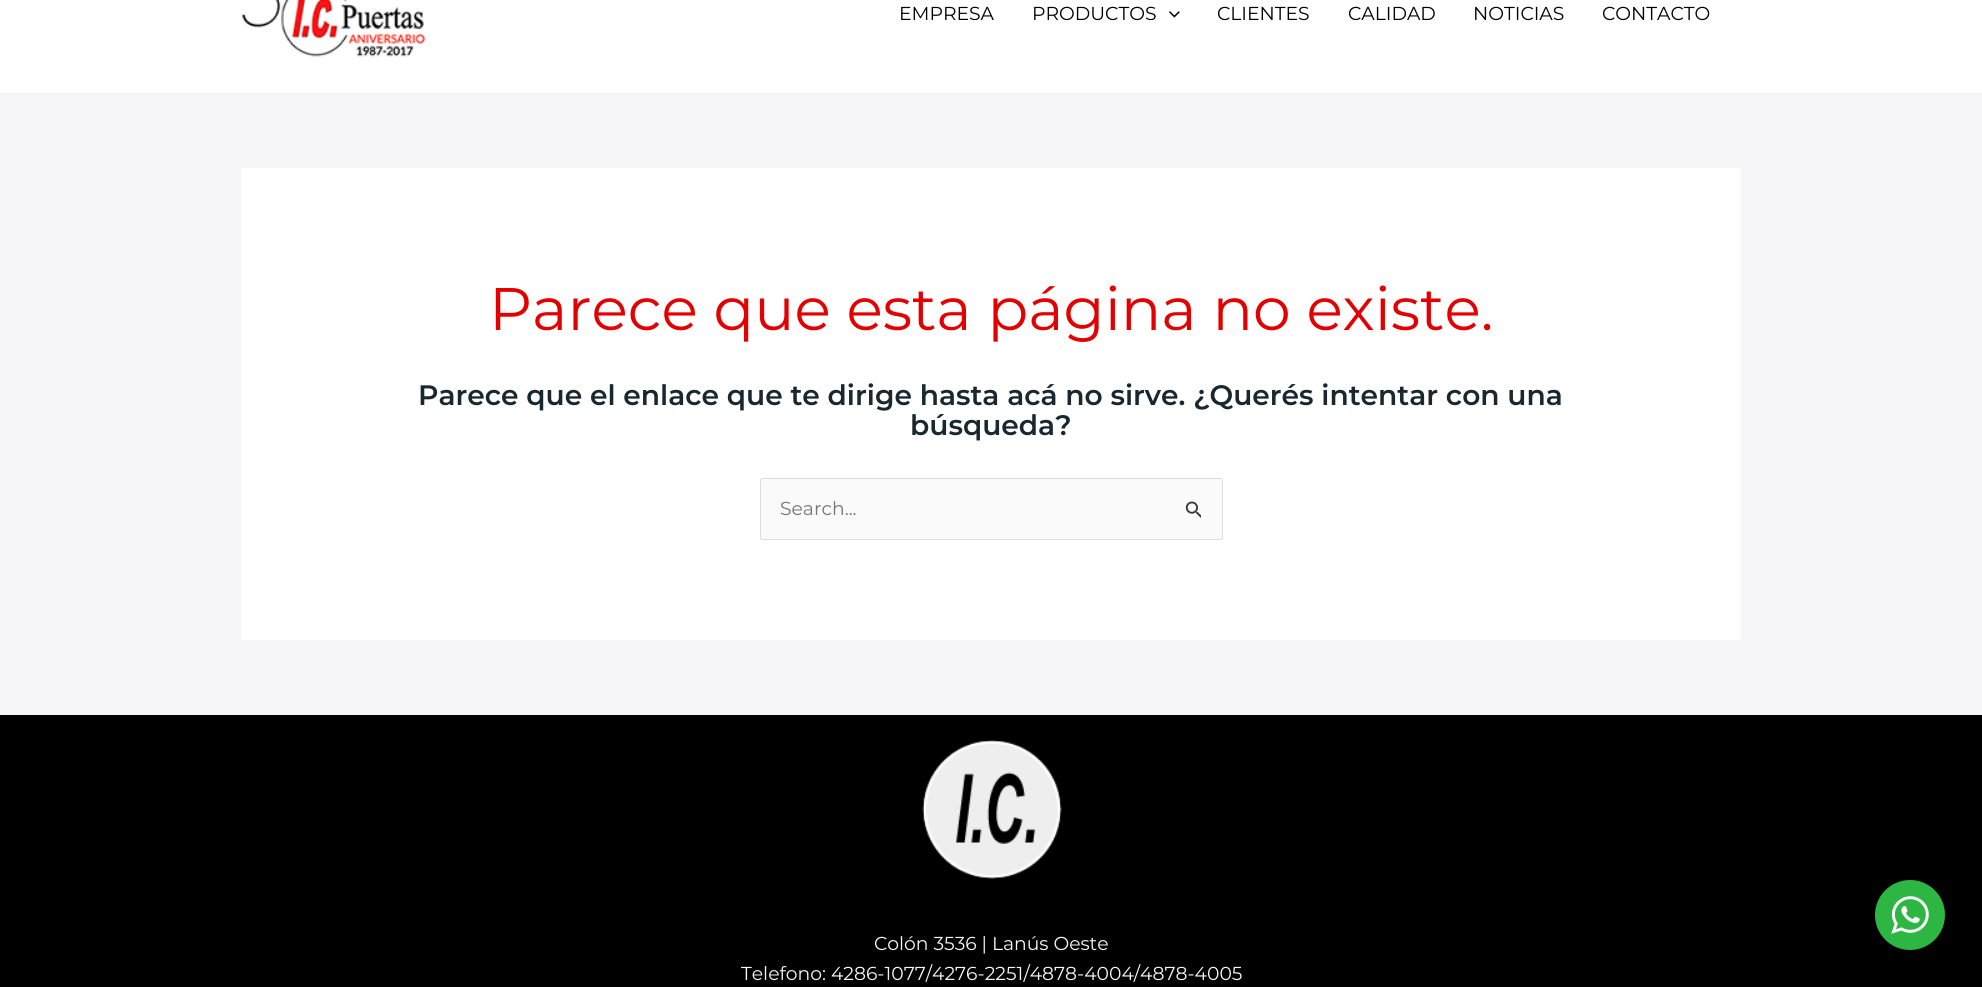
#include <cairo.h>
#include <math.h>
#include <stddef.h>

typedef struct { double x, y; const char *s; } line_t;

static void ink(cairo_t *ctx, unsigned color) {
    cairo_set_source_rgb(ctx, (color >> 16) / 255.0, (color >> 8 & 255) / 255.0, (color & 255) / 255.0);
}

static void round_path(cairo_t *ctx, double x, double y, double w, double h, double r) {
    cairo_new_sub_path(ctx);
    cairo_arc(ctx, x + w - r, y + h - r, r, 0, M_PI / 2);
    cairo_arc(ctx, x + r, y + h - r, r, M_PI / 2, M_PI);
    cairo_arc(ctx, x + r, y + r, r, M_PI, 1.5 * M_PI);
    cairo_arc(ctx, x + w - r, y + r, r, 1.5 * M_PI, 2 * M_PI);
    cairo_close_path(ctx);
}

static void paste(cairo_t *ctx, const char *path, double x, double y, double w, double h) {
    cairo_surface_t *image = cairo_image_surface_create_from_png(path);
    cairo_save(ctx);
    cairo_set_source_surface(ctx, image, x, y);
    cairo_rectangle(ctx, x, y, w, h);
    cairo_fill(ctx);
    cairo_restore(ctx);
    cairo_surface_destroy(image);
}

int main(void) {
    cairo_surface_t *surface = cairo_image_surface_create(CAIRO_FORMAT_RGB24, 1982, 987);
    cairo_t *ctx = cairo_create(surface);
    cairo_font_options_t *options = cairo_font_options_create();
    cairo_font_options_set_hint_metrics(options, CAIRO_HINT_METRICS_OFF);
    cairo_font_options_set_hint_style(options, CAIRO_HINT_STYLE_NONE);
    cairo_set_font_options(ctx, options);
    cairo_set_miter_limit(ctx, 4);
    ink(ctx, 0xF6F6F8);
    cairo_paint(ctx);
    ink(ctx, 0xFFFFFF);
    cairo_rectangle(ctx, 0, 0, 1982, 93);
    cairo_fill(ctx);
    paste(ctx, "media/1.png", 242, 0, 184, 57);
    cairo_select_font_face(ctx, "Montserrat", CAIRO_FONT_SLANT_NORMAL, CAIRO_FONT_WEIGHT_NORMAL);
    cairo_set_font_size(ctx, 18.75);
    ink(ctx, 0x000000);
    cairo_move_to(ctx, 899, 20);
    cairo_show_text(ctx, "EMPRESA");
    cairo_move_to(ctx, 1032, 20);
    cairo_show_text(ctx, "PRODUCTOS");
    paste(ctx, "media/2.png", 1169, 11, 11, 7);
    {
        static const line_t items[] = {
            {1217, 20, "CLIENTES"},
            {1348, 20, "CALIDAD"},
            {1473, 20, "NOTICIAS"},
            {1602, 20, "CONTACTO"},
        };
        for (size_t i = 0; i < sizeof items / sizeof *items; i++) {
            cairo_move_to(ctx, items[i].x, items[i].y);
            cairo_show_text(ctx, items[i].s);
        }
    }
    ink(ctx, 0xFFFFFF);
    cairo_rectangle(ctx, 241, 168, 1500, 472);
    cairo_fill(ctx);
    cairo_set_font_size(ctx, 60);
    ink(ctx, 0xE30000);
    cairo_move_to(ctx, 489, 330);
    cairo_show_text(ctx, "Parece que esta página no existe.");
    cairo_select_font_face(ctx, "Montserrat SemiBold", CAIRO_FONT_SLANT_NORMAL, CAIRO_FONT_WEIGHT_NORMAL);
    cairo_set_font_size(ctx, 28.1);
    ink(ctx, 0x192730);
    cairo_move_to(ctx, 418, 405);
    cairo_show_text(ctx, "Parece que el enlace que te dirige hasta acá no sirve. ¿Querés intentar con una");
    cairo_move_to(ctx, 910, 435);
    cairo_show_text(ctx, "búsqueda?");
    ink(ctx, 0xFAFAFA);
    round_path(ctx, 760.5, 478.5, 462, 61, 2);
    cairo_fill_preserve(ctx);
    ink(ctx, 0xDDDDDD);
    cairo_set_line_width(ctx, 1);
    cairo_stroke(ctx);
    cairo_select_font_face(ctx, "Montserrat", CAIRO_FONT_SLANT_NORMAL, CAIRO_FONT_WEIGHT_NORMAL);
    cairo_set_font_size(ctx, 18.75);
    ink(ctx, 0x757575);
    cairo_move_to(ctx, 780, 515);
    cairo_show_text(ctx, "Search...");
    paste(ctx, "media/3.png", 1185, 501, 16, 17);
    ink(ctx, 0x000000);
    cairo_rectangle(ctx, 0, 715, 1982, 272);
    cairo_fill(ctx);
    paste(ctx, "media/4.png", 922, 740, 140, 139);
    ink(ctx, 0xF6F6F8);
    cairo_move_to(ctx, 874, 950);
    cairo_show_text(ctx, "Colón 3536 | Lanús Oeste");
    cairo_move_to(ctx, 741, 980);
    cairo_show_text(ctx, "Telefono: 4286-1077/4276-2251/4878-4004/4878-4005");
    ink(ctx, 0x2DB742);
    cairo_new_path(ctx);
    cairo_arc(ctx, 1910, 915, 35, 0, 2 * M_PI);
    cairo_fill(ctx);
    paste(ctx, "media/5.png", 1891, 896, 38, 38);
    cairo_surface_write_to_png(surface, "image.png");
    cairo_font_options_destroy(options);
    cairo_destroy(ctx);
    cairo_surface_destroy(surface);
    return 0;
}
